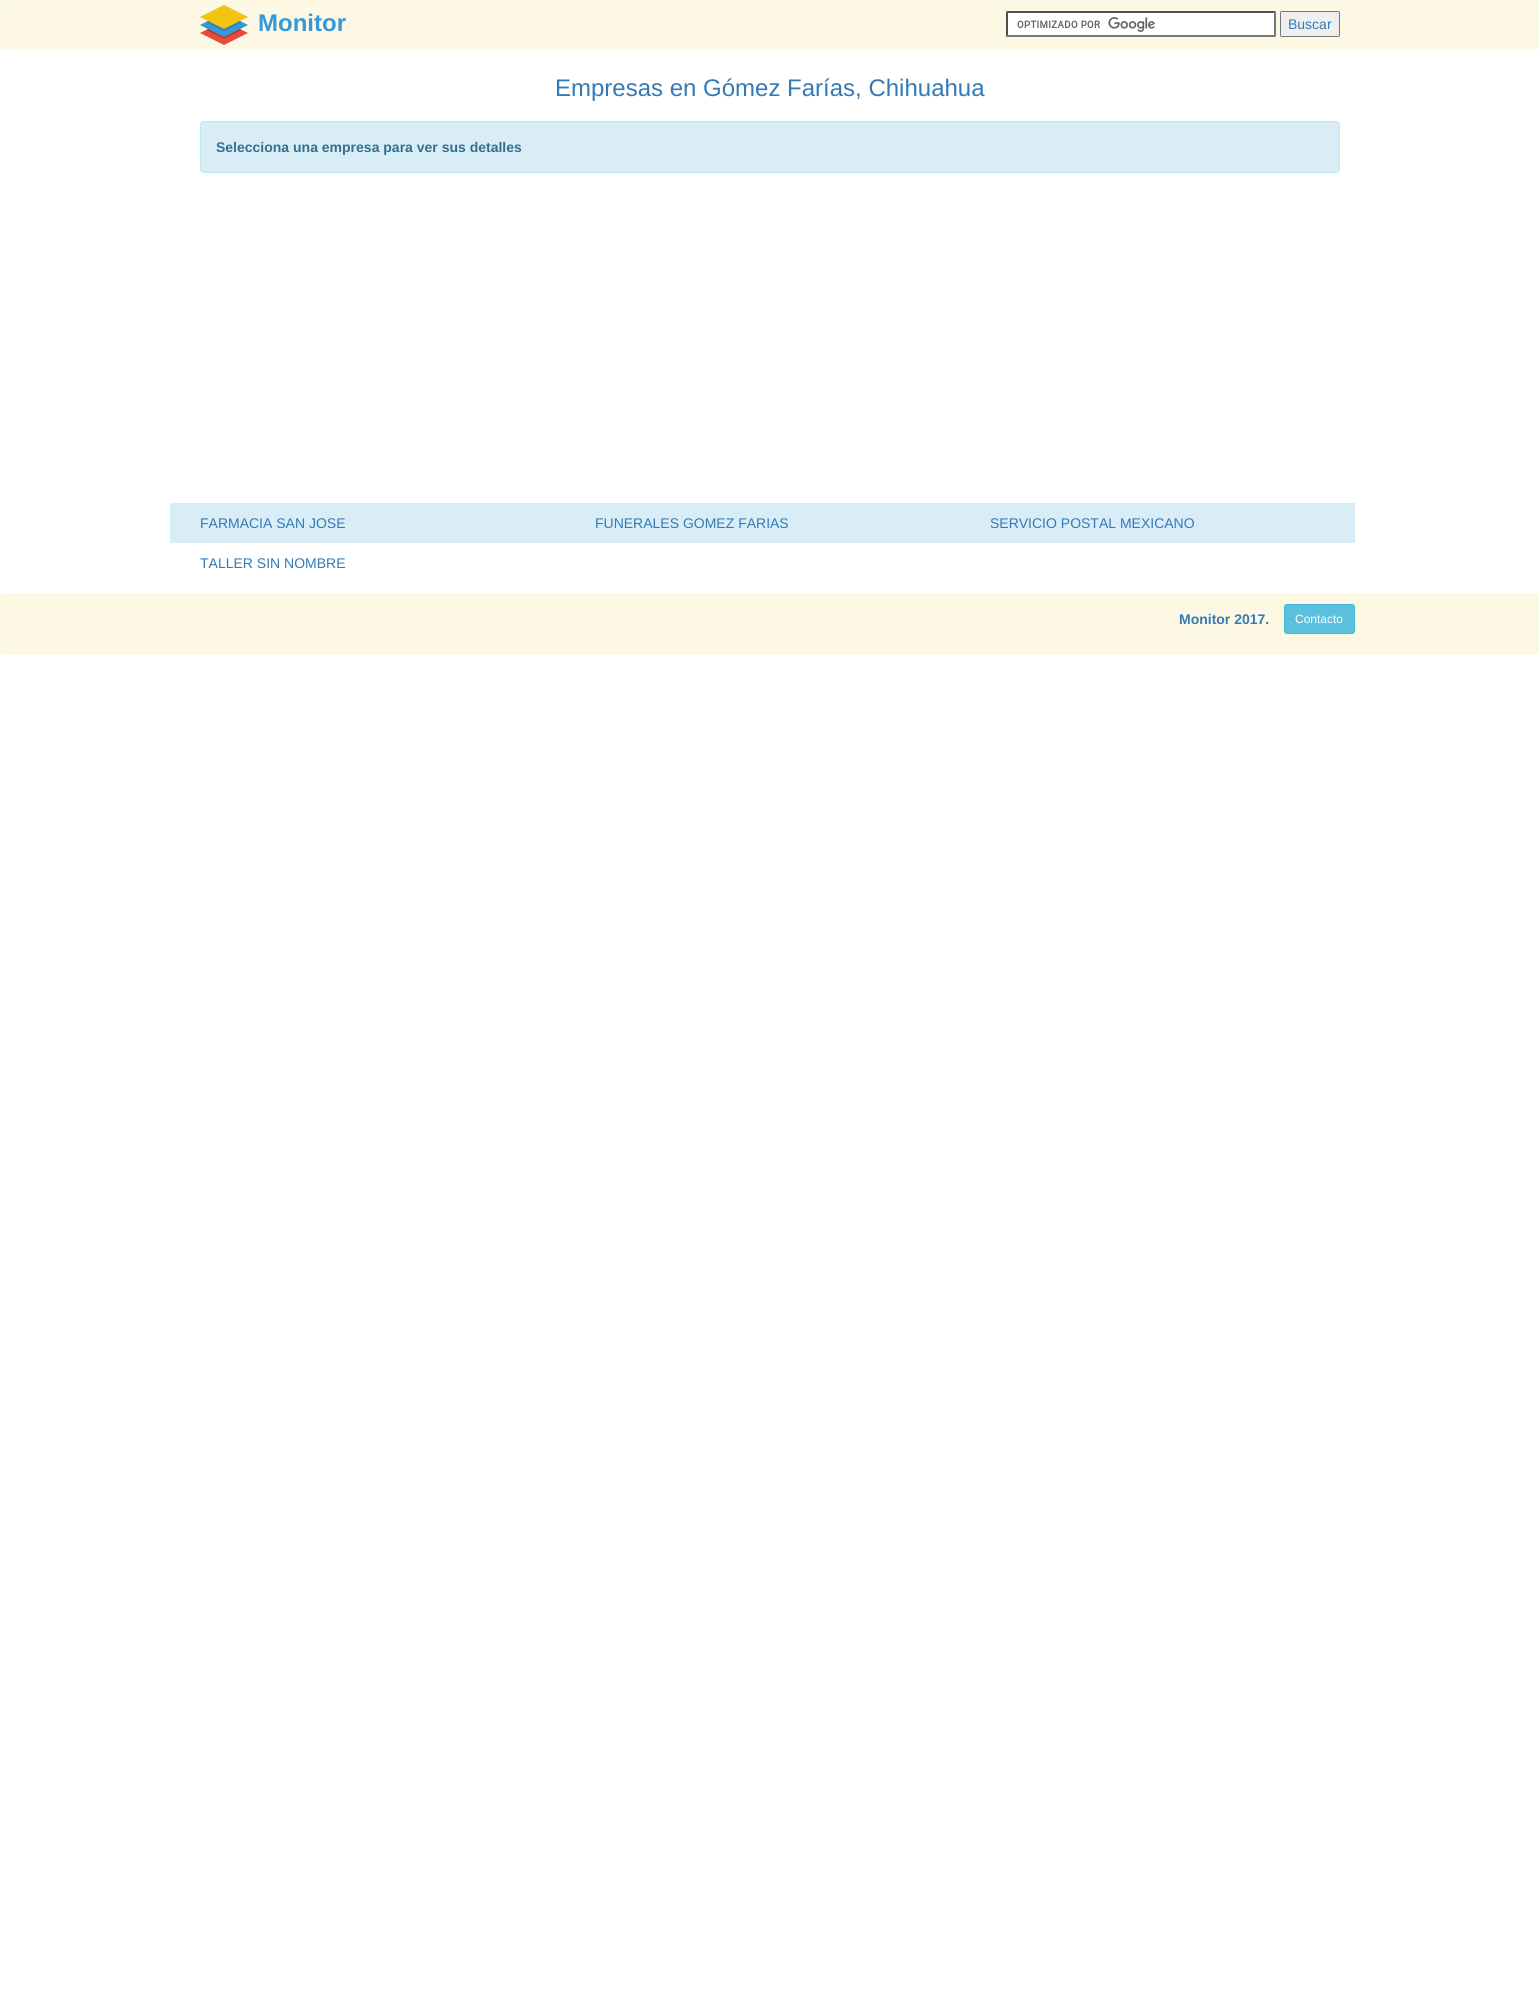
#include <cairo.h>
#include <math.h>
#include <stddef.h>

typedef struct { double x, y; const char *s; } line_t;

static void ink(cairo_t *ctx, unsigned color) {
    cairo_set_source_rgb(ctx, (color >> 16) / 255.0, (color >> 8 & 255) / 255.0, (color & 255) / 255.0);
}

static void round_path(cairo_t *ctx, double x, double y, double w, double h, double r) {
    cairo_new_sub_path(ctx);
    cairo_arc(ctx, x + w - r, y + h - r, r, 0, M_PI / 2);
    cairo_arc(ctx, x + r, y + h - r, r, M_PI / 2, M_PI);
    cairo_arc(ctx, x + r, y + r, r, M_PI, 1.5 * M_PI);
    cairo_arc(ctx, x + w - r, y + r, r, 1.5 * M_PI, 2 * M_PI);
    cairo_close_path(ctx);
}

static void paste(cairo_t *ctx, const char *path, double x, double y, double w, double h) {
    cairo_surface_t *image = cairo_image_surface_create_from_png(path);
    cairo_save(ctx);
    cairo_set_source_surface(ctx, image, x, y);
    cairo_rectangle(ctx, x, y, w, h);
    cairo_fill(ctx);
    cairo_restore(ctx);
    cairo_surface_destroy(image);
}

int main(void) {
    cairo_surface_t *surface = cairo_image_surface_create(CAIRO_FORMAT_RGB24, 1539, 2010);
    cairo_t *ctx = cairo_create(surface);
    cairo_font_options_t *options = cairo_font_options_create();
    cairo_font_options_set_hint_metrics(options, CAIRO_HINT_METRICS_OFF);
    cairo_font_options_set_hint_style(options, CAIRO_HINT_STYLE_NONE);
    cairo_set_font_options(ctx, options);
    cairo_set_miter_limit(ctx, 4);
    ink(ctx, 0xFFFFFF);
    cairo_paint(ctx);
    ink(ctx, 0xFCF8E3);
    round_path(ctx, 0, 0, 1539, 50, 4);
    cairo_fill(ctx);
    paste(ctx, "media/1.png", 200, 5, 48, 40);
    cairo_select_font_face(ctx, "Liberation Sans", CAIRO_FONT_SLANT_NORMAL, CAIRO_FONT_WEIGHT_BOLD);
    cairo_set_font_size(ctx, 24);
    ink(ctx, 0x3498DB);
    cairo_move_to(ctx, 258, 31);
    cairo_show_text(ctx, "Monitor");
    ink(ctx, 0xFFFFFF);
    cairo_rectangle(ctx, 1006, 11, 270, 26);
    cairo_fill(ctx);
    paste(ctx, "media/2.png", 1017, 17, 138, 15);
    ink(ctx, 0x4F4F4F);
    cairo_new_path(ctx);
    cairo_move_to(ctx, 1006, 11);
    cairo_line_to(ctx, 1276, 11);
    cairo_line_to(ctx, 1274, 13);
    cairo_line_to(ctx, 1008, 13);
    cairo_close_path(ctx);
    cairo_fill(ctx);
    ink(ctx, 0x767676);
    cairo_new_path(ctx);
    cairo_move_to(ctx, 1276, 11);
    cairo_line_to(ctx, 1276, 37);
    cairo_line_to(ctx, 1274, 35);
    cairo_line_to(ctx, 1274, 13);
    cairo_close_path(ctx);
    cairo_fill(ctx);
    cairo_new_path(ctx);
    cairo_move_to(ctx, 1276, 37);
    cairo_line_to(ctx, 1006, 37);
    cairo_line_to(ctx, 1008, 35);
    cairo_line_to(ctx, 1274, 35);
    cairo_close_path(ctx);
    cairo_fill(ctx);
    ink(ctx, 0x4F4F4F);
    cairo_new_path(ctx);
    cairo_move_to(ctx, 1006, 37);
    cairo_line_to(ctx, 1006, 11);
    cairo_line_to(ctx, 1008, 13);
    cairo_line_to(ctx, 1008, 35);
    cairo_close_path(ctx);
    cairo_fill(ctx);
    ink(ctx, 0xEFEFEF);
    round_path(ctx, 1280.5, 11.5, 59, 25, 1.5);
    cairo_fill_preserve(ctx);
    ink(ctx, 0x767676);
    cairo_set_line_width(ctx, 1);
    cairo_stroke(ctx);
    cairo_select_font_face(ctx, "Liberation Sans", CAIRO_FONT_SLANT_NORMAL, CAIRO_FONT_WEIGHT_NORMAL);
    cairo_set_font_size(ctx, 14);
    ink(ctx, 0x337AB7);
    cairo_move_to(ctx, 1288, 29);
    cairo_show_text(ctx, "Buscar");
    cairo_set_font_size(ctx, 24);
    cairo_move_to(ctx, 555, 96);
    cairo_show_text(ctx, "Empresas en Gómez Farías, Chihuahua");
    ink(ctx, 0xD9EDF7);
    round_path(ctx, 200.5, 121.5, 1139, 51, 3.5);
    cairo_fill_preserve(ctx);
    ink(ctx, 0xBCE8F1);
    cairo_stroke(ctx);
    cairo_select_font_face(ctx, "Liberation Sans", CAIRO_FONT_SLANT_NORMAL, CAIRO_FONT_WEIGHT_BOLD);
    cairo_set_font_size(ctx, 14);
    ink(ctx, 0x31708F);
    cairo_move_to(ctx, 216, 152);
    cairo_show_text(ctx, "Selecciona una empresa para ver sus detalles");
    ink(ctx, 0xD9EDF7);
    cairo_rectangle(ctx, 170, 503, 1185, 40);
    cairo_fill(ctx);
    cairo_select_font_face(ctx, "Liberation Sans", CAIRO_FONT_SLANT_NORMAL, CAIRO_FONT_WEIGHT_NORMAL);
    ink(ctx, 0x337AB7);
    {
        static const line_t items[] = {
            {200, 528, "FARMACIA SAN JOSE"},
            {595, 528, "FUNERALES GOMEZ FARIAS"},
            {990, 528, "SERVICIO POSTAL MEXICANO"},
            {200, 568, "TALLER SIN NOMBRE"},
        };
        for (size_t i = 0; i < sizeof items / sizeof *items; i++) {
            cairo_move_to(ctx, items[i].x, items[i].y);
            cairo_show_text(ctx, items[i].s);
        }
    }
    ink(ctx, 0xFCF8E3);
    round_path(ctx, 0, 593, 1539, 62, 4);
    cairo_fill(ctx);
    cairo_select_font_face(ctx, "Liberation Sans", CAIRO_FONT_SLANT_NORMAL, CAIRO_FONT_WEIGHT_BOLD);
    ink(ctx, 0x337AB7);
    cairo_move_to(ctx, 1179, 624);
    cairo_show_text(ctx, "Monitor 2017.");
    ink(ctx, 0x5BC0DE);
    round_path(ctx, 1284.5, 604.5, 70, 29, 2.5);
    cairo_fill_preserve(ctx);
    ink(ctx, 0x46B8DA);
    cairo_stroke(ctx);
    cairo_select_font_face(ctx, "Liberation Sans", CAIRO_FONT_SLANT_NORMAL, CAIRO_FONT_WEIGHT_NORMAL);
    cairo_set_font_size(ctx, 12);
    ink(ctx, 0xFFFFFF);
    cairo_move_to(ctx, 1295, 623);
    cairo_show_text(ctx, "Contacto");
    cairo_surface_write_to_png(surface, "image.png");
    cairo_font_options_destroy(options);
    cairo_destroy(ctx);
    cairo_surface_destroy(surface);
    return 0;
}
